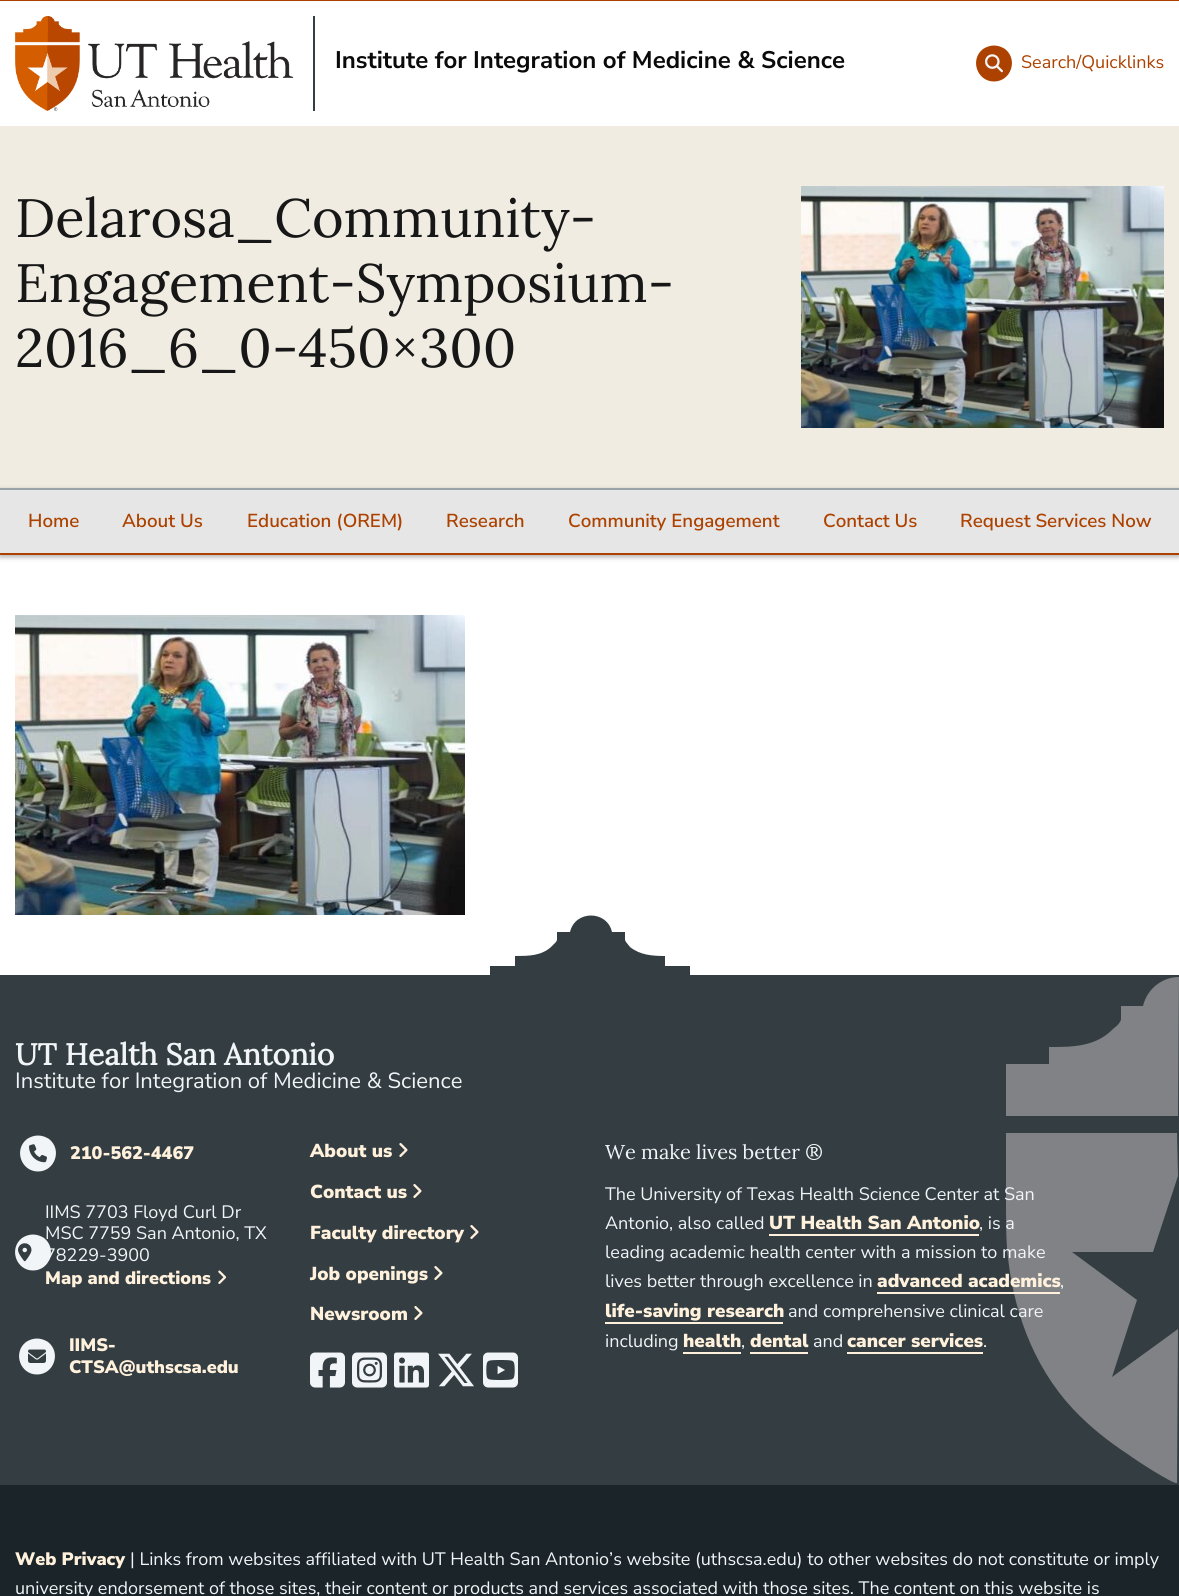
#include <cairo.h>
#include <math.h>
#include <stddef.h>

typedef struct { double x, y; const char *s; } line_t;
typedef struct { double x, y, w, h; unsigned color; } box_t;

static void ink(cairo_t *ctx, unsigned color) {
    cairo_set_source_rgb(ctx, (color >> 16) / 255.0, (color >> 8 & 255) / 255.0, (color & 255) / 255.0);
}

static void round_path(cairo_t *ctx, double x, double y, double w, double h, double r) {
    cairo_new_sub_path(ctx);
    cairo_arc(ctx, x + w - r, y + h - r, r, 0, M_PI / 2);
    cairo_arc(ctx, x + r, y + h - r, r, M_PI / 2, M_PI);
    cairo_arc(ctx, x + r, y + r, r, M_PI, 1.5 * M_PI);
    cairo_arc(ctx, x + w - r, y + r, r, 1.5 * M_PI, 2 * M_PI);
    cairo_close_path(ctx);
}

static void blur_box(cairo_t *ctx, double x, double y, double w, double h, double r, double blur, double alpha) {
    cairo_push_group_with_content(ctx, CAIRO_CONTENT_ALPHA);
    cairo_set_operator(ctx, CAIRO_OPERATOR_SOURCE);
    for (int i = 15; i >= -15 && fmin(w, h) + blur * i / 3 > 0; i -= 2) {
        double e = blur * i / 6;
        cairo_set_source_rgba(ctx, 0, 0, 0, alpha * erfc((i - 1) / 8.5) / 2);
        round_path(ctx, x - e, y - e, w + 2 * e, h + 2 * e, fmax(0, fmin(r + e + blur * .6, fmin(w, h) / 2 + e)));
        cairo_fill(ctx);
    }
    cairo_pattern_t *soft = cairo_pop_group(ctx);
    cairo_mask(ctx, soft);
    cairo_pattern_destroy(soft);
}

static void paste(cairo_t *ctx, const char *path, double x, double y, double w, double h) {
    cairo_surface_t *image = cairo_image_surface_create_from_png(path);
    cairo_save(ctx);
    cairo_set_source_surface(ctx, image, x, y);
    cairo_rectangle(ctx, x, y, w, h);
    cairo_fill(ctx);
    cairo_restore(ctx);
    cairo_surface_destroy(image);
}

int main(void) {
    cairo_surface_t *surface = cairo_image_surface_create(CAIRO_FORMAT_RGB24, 1179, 1596);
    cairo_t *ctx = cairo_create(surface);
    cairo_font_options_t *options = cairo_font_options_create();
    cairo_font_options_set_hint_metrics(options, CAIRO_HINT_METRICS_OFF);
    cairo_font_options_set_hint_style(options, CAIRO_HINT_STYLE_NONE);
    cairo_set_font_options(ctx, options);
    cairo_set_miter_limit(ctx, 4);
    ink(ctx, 0xFFFFFF);
    cairo_paint(ctx);
    ink(ctx, 0xAD4200);
    cairo_rectangle(ctx, 0, 0, 1179, 1);
    cairo_fill(ctx);
    ink(ctx, 0x333D42);
    cairo_rectangle(ctx, 313, 16, 2, 95);
    cairo_fill(ctx);
    paste(ctx, "media/1.png", 15, 16, 279, 95);
    cairo_select_font_face(ctx, "Nunito Sans", CAIRO_FONT_SLANT_NORMAL, CAIRO_FONT_WEIGHT_BOLD);
    cairo_set_font_size(ctx, 24);
    ink(ctx, 0x0A0A0A);
    cairo_move_to(ctx, 335, 68);
    cairo_show_text(ctx, "Institute for Integration of Medicine & Science");
    ink(ctx, 0xAD4200);
    cairo_new_path(ctx);
    cairo_move_to(ctx, 994, 81.5);
    cairo_curve_to(ctx, 1011, 81.5, 1018.5, 59.5, 1005, 49);
    cairo_curve_to(ctx, 1002, 47, 998, 45.5, 994, 45.5);
    cairo_curve_to(ctx, 990, 45.5, 986, 47, 983, 49);
    cairo_curve_to(ctx, 969.5, 59.5, 977, 81.5, 994, 81.5);
    cairo_close_path(ctx);
    cairo_fill(ctx);
    paste(ctx, "media/2.png", 985, 54, 18, 19);
    cairo_select_font_face(ctx, "Nunito Sans", CAIRO_FONT_SLANT_NORMAL, CAIRO_FONT_WEIGHT_NORMAL);
    cairo_set_font_size(ctx, 18);
    cairo_move_to(ctx, 1021, 68);
    cairo_show_text(ctx, "Search/Quicklinks");
    ink(ctx, 0xF0ECE2);
    cairo_rectangle(ctx, 0, 126, 1179, 362);
    cairo_fill(ctx);
    cairo_select_font_face(ctx, "Lora", CAIRO_FONT_SLANT_NORMAL, CAIRO_FONT_WEIGHT_NORMAL);
    cairo_set_font_size(ctx, 54);
    ink(ctx, 0x171717);
    {
        static const line_t items[] = {
            {15, 237, "Delarosa_Community-"},
            {15, 302, "Engagement-Symposium-"},
            {15, 367, "2016_6_0-450×300"},
        };
        for (size_t i = 0; i < sizeof items / sizeof *items; i++) {
            cairo_move_to(ctx, items[i].x, items[i].y);
            cairo_show_text(ctx, items[i].s);
        }
    }
    paste(ctx, "media/3.png", 801, 186, 363, 242);
    ink(ctx, 0x171717);
    blur_box(ctx, 0, 490, 1179, 67, 0, 2.5, 0.35);
    {
        static const box_t items[] = {
            {0, 488, 1179, 2, 0x99A3A8},
            {0, 553, 1179, 2, 0xAD4200},
            {0, 490, 1179, 63, 0xE6E6E6},
        };
        for (size_t i = 0; i < sizeof items / sizeof *items; i++) {
            ink(ctx, items[i].color);
            cairo_rectangle(ctx, items[i].x, items[i].y, items[i].w, items[i].h);
            cairo_fill(ctx);
        }
    }
    cairo_select_font_face(ctx, "Nunito Sans SemiBold", CAIRO_FONT_SLANT_NORMAL, CAIRO_FONT_WEIGHT_NORMAL);
    cairo_set_font_size(ctx, 18.75);
    ink(ctx, 0xAD4200);
    {
        static const line_t items[] = {
            {28, 527, "Home"},
            {122, 527, "About Us"},
            {247, 527, "Education (OREM)"},
            {446, 527, "Research"},
            {568, 527, "Community Engagement"},
            {823, 527, "Contact Us"},
            {960, 527, "Request Services Now"},
        };
        for (size_t i = 0; i < sizeof items / sizeof *items; i++) {
            cairo_move_to(ctx, items[i].x, items[i].y);
            cairo_show_text(ctx, items[i].s);
        }
    }
    paste(ctx, "media/4.png", 15, 615, 450, 300);
    ink(ctx, 0x333D42);
    cairo_rectangle(ctx, 0, 975, 1179, 510);
    cairo_fill(ctx);
    cairo_new_path(ctx);
    cairo_move_to(ctx, 490, 996);
    cairo_line_to(ctx, 690, 996);
    cairo_line_to(ctx, 690, 966);
    cairo_line_to(ctx, 665, 966);
    cairo_line_to(ctx, 665, 956);
    cairo_curve_to(ctx, 652, 956, 640, 955, 630, 947);
    cairo_line_to(ctx, 626, 942);
    cairo_line_to(ctx, 625, 940);
    cairo_line_to(ctx, 625, 932);
    cairo_line_to(ctx, 612, 932);
    cairo_curve_to(ctx, 607, 910, 575, 910, 570, 932);
    cairo_line_to(ctx, 557, 932);
    cairo_line_to(ctx, 557, 940);
    cairo_line_to(ctx, 556, 942);
    cairo_line_to(ctx, 551, 947);
    cairo_curve_to(ctx, 541, 956, 528, 956, 515, 956);
    cairo_line_to(ctx, 515, 966);
    cairo_line_to(ctx, 490, 966);
    cairo_line_to(ctx, 490, 996);
    cairo_fill(ctx);
    ink(ctx, 0x808285);
    cairo_new_path(ctx);
    cairo_move_to(ctx, 1178, 1116);
    cairo_line_to(ctx, 1179, 977);
    cairo_curve_to(ctx, 1162, 977, 1147, 989, 1143, 1006);
    cairo_line_to(ctx, 1121, 1006);
    cairo_line_to(ctx, 1121, 1019);
    cairo_curve_to(ctx, 1121, 1022, 1116, 1027, 1114, 1028);
    cairo_curve_to(ctx, 1096, 1047, 1073, 1047, 1049, 1047);
    cairo_line_to(ctx, 1049, 1064);
    cairo_line_to(ctx, 1006, 1064);
    cairo_line_to(ctx, 1006, 1116);
    cairo_close_path(ctx);
    cairo_move_to(ctx, 1178, 1329);
    cairo_line_to(ctx, 1112, 1377);
    cairo_line_to(ctx, 1137, 1300);
    cairo_line_to(ctx, 1072, 1252);
    cairo_line_to(ctx, 1153, 1252);
    cairo_line_to(ctx, 1178, 1176);
    cairo_line_to(ctx, 1177, 1133);
    cairo_line_to(ctx, 1006, 1133);
    cairo_line_to(ctx, 1006, 1207);
    cairo_curve_to(ctx, 1006, 1220, 1006, 1234, 1007, 1248);
    cairo_curve_to(ctx, 1012, 1307, 1032, 1365, 1073, 1409);
    cairo_curve_to(ctx, 1090, 1427, 1109, 1442, 1129, 1455);
    cairo_curve_to(ctx, 1134, 1459, 1174, 1485, 1177, 1483);
    cairo_close_path(ctx);
    cairo_fill(ctx);
    cairo_select_font_face(ctx, "Lora", CAIRO_FONT_SLANT_NORMAL, CAIRO_FONT_WEIGHT_BOLD);
    cairo_set_font_size(ctx, 30);
    ink(ctx, 0xF1F5F7);
    cairo_move_to(ctx, 15, 1065);
    cairo_show_text(ctx, "UT Health San Antonio");
    cairo_select_font_face(ctx, "Nunito Sans", CAIRO_FONT_SLANT_NORMAL, CAIRO_FONT_WEIGHT_NORMAL);
    cairo_set_font_size(ctx, 22);
    cairo_move_to(ctx, 15, 1088);
    cairo_show_text(ctx, "Institute for Integration of Medicine & Science");
    cairo_new_path(ctx);
    cairo_move_to(ctx, 38, 1171.5);
    cairo_curve_to(ctx, 55, 1171.5, 62.5, 1149.5, 49, 1139);
    cairo_curve_to(ctx, 46, 1137, 42, 1135.5, 38, 1135.5);
    cairo_curve_to(ctx, 34, 1135.5, 30, 1137, 27, 1139);
    cairo_curve_to(ctx, 13.5, 1149.5, 21, 1171.5, 38, 1171.5);
    cairo_close_path(ctx);
    cairo_fill(ctx);
    paste(ctx, "media/5.png", 29, 1144, 18, 19);
    cairo_select_font_face(ctx, "Nunito Sans Black", CAIRO_FONT_SLANT_NORMAL, CAIRO_FONT_WEIGHT_NORMAL);
    cairo_set_font_size(ctx, 18);
    ink(ctx, 0xFFF1DB);
    cairo_move_to(ctx, 70, 1159);
    cairo_show_text(ctx, "210-562-4467");
    cairo_move_to(ctx, 45, 1284);
    cairo_show_text(ctx, "Map and directions");
    ink(ctx, 0xF1F5F7);
    cairo_new_path(ctx);
    cairo_move_to(ctx, 33, 1270.5);
    cairo_curve_to(ctx, 50, 1270.5, 57.5, 1248.5, 44, 1238);
    cairo_curve_to(ctx, 41, 1236, 37, 1234.5, 33, 1234.5);
    cairo_curve_to(ctx, 29, 1234.5, 25, 1236, 22, 1238);
    cairo_curve_to(ctx, 8.5, 1248.5, 16, 1270.5, 33, 1270.5);
    cairo_close_path(ctx);
    cairo_fill(ctx);
    paste(ctx, "media/6.png", 18, 1243, 14, 19);
    cairo_select_font_face(ctx, "Nunito Sans", CAIRO_FONT_SLANT_NORMAL, CAIRO_FONT_WEIGHT_NORMAL);
    {
        static const line_t items[] = {
            {45, 1218, "IIMS 7703 Floyd Curl Dr"},
            {45, 1239, "MSC 7759 San Antonio, TX"},
            {45, 1261, "78229-3900"},
        };
        for (size_t i = 0; i < sizeof items / sizeof *items; i++) {
            cairo_move_to(ctx, items[i].x, items[i].y);
            cairo_show_text(ctx, items[i].s);
        }
    }
    paste(ctx, "media/7.png", 218, 1270, 9, 14);
    cairo_new_path(ctx);
    cairo_move_to(ctx, 37, 1374.5);
    cairo_curve_to(ctx, 54, 1374.5, 61.5, 1352.5, 48, 1342);
    cairo_curve_to(ctx, 45, 1340, 41, 1338.5, 37, 1338.5);
    cairo_curve_to(ctx, 33, 1338.5, 29, 1340, 26, 1342);
    cairo_curve_to(ctx, 12.5, 1352.5, 20, 1374.5, 37, 1374.5);
    cairo_close_path(ctx);
    cairo_fill(ctx);
    paste(ctx, "media/8.png", 28, 1349, 18, 14);
    cairo_select_font_face(ctx, "Nunito Sans Black", CAIRO_FONT_SLANT_NORMAL, CAIRO_FONT_WEIGHT_NORMAL);
    ink(ctx, 0xFFF1DB);
    cairo_move_to(ctx, 69, 1351);
    cairo_show_text(ctx, "IIMS-");
    cairo_move_to(ctx, 69, 1373);
    cairo_show_text(ctx, "CTSA@uthscsa.edu");
    cairo_set_font_size(ctx, 18.75);
    cairo_move_to(ctx, 310, 1157);
    cairo_show_text(ctx, "About us");
    paste(ctx, "media/9.png", 399, 1143, 9, 14);
    cairo_move_to(ctx, 310, 1198);
    cairo_show_text(ctx, "Contact us");
    paste(ctx, "media/9.png", 413, 1184, 9, 14);
    cairo_move_to(ctx, 310, 1239);
    cairo_show_text(ctx, "Faculty directory");
    paste(ctx, "media/9.png", 470, 1225, 9, 14);
    cairo_move_to(ctx, 310, 1280);
    cairo_show_text(ctx, "Job openings");
    paste(ctx, "media/9.png", 434, 1266, 9, 14);
    cairo_move_to(ctx, 310, 1320);
    cairo_show_text(ctx, "Newsroom");
    paste(ctx, "media/9.png", 414, 1306, 9, 14);
    paste(ctx, "media/10.png", 310, 1352, 35, 36);
    paste(ctx, "media/11.png", 352, 1352, 35, 36);
    paste(ctx, "media/12.png", 394, 1352, 35, 36);
    paste(ctx, "media/13.png", 438, 1353, 36, 34);
    paste(ctx, "media/14.png", 483, 1352, 35, 36);
    cairo_select_font_face(ctx, "Lora", CAIRO_FONT_SLANT_NORMAL, CAIRO_FONT_WEIGHT_NORMAL);
    cairo_set_font_size(ctx, 20);
    ink(ctx, 0xF1F5F7);
    cairo_move_to(ctx, 605, 1159);
    cairo_show_text(ctx, "We make lives better ®");
    cairo_select_font_face(ctx, "Nunito Sans", CAIRO_FONT_SLANT_NORMAL, CAIRO_FONT_WEIGHT_NORMAL);
    cairo_set_font_size(ctx, 18);
    cairo_move_to(ctx, 605, 1200);
    cairo_show_text(ctx, "The University of Texas Health Science Center at San");
    cairo_move_to(ctx, 605, 1229);
    cairo_show_text(ctx, "Antonio, also called");
    cairo_select_font_face(ctx, "Nunito Sans Black", CAIRO_FONT_SLANT_NORMAL, CAIRO_FONT_WEIGHT_NORMAL);
    cairo_set_font_size(ctx, 18.75);
    ink(ctx, 0xFFF1DB);
    cairo_move_to(ctx, 769, 1229);
    cairo_show_text(ctx, "UT Health San Antonio");
    cairo_rectangle(ctx, 769, 1234, 210, 2);
    cairo_fill(ctx);
    cairo_select_font_face(ctx, "Nunito Sans", CAIRO_FONT_SLANT_NORMAL, CAIRO_FONT_WEIGHT_NORMAL);
    cairo_set_font_size(ctx, 18);
    ink(ctx, 0xF1F5F7);
    {
        static const line_t items[] = {
            {979, 1229, ", is a"},
            {605, 1258, "leading academic health center with a mission to make"},
            {605, 1287, "lives better through excellence in"},
        };
        for (size_t i = 0; i < sizeof items / sizeof *items; i++) {
            cairo_move_to(ctx, items[i].x, items[i].y);
            cairo_show_text(ctx, items[i].s);
        }
    }
    cairo_select_font_face(ctx, "Nunito Sans Black", CAIRO_FONT_SLANT_NORMAL, CAIRO_FONT_WEIGHT_NORMAL);
    cairo_set_font_size(ctx, 18.75);
    ink(ctx, 0xFFF1DB);
    cairo_move_to(ctx, 877, 1287);
    cairo_show_text(ctx, "advanced academics");
    cairo_rectangle(ctx, 877, 1292, 183, 2);
    cairo_fill(ctx);
    cairo_select_font_face(ctx, "Nunito Sans", CAIRO_FONT_SLANT_NORMAL, CAIRO_FONT_WEIGHT_NORMAL);
    cairo_set_font_size(ctx, 18);
    ink(ctx, 0xF1F5F7);
    cairo_move_to(ctx, 1060, 1287);
    cairo_show_text(ctx, ",");
    cairo_select_font_face(ctx, "Nunito Sans Black", CAIRO_FONT_SLANT_NORMAL, CAIRO_FONT_WEIGHT_NORMAL);
    cairo_set_font_size(ctx, 18.75);
    ink(ctx, 0xFFF1DB);
    cairo_move_to(ctx, 605, 1317);
    cairo_show_text(ctx, "life-saving research");
    cairo_rectangle(ctx, 605, 1322, 178, 2);
    cairo_fill(ctx);
    cairo_select_font_face(ctx, "Nunito Sans", CAIRO_FONT_SLANT_NORMAL, CAIRO_FONT_WEIGHT_NORMAL);
    cairo_set_font_size(ctx, 18);
    ink(ctx, 0xF1F5F7);
    cairo_move_to(ctx, 788, 1317);
    cairo_show_text(ctx, "and comprehensive clinical care");
    cairo_move_to(ctx, 605, 1347);
    cairo_show_text(ctx, "including");
    cairo_select_font_face(ctx, "Nunito Sans Black", CAIRO_FONT_SLANT_NORMAL, CAIRO_FONT_WEIGHT_NORMAL);
    cairo_set_font_size(ctx, 18.75);
    ink(ctx, 0xFFF1DB);
    cairo_move_to(ctx, 683, 1347);
    cairo_show_text(ctx, "health");
    cairo_rectangle(ctx, 683, 1352, 58, 2);
    cairo_fill(ctx);
    cairo_select_font_face(ctx, "Nunito Sans", CAIRO_FONT_SLANT_NORMAL, CAIRO_FONT_WEIGHT_NORMAL);
    cairo_set_font_size(ctx, 18);
    ink(ctx, 0xF1F5F7);
    cairo_move_to(ctx, 741, 1347);
    cairo_show_text(ctx, ",");
    cairo_select_font_face(ctx, "Nunito Sans Black", CAIRO_FONT_SLANT_NORMAL, CAIRO_FONT_WEIGHT_NORMAL);
    cairo_set_font_size(ctx, 18.75);
    ink(ctx, 0xFFF1DB);
    cairo_move_to(ctx, 750, 1347);
    cairo_show_text(ctx, "dental");
    cairo_rectangle(ctx, 750, 1352, 58, 2);
    cairo_fill(ctx);
    cairo_select_font_face(ctx, "Nunito Sans", CAIRO_FONT_SLANT_NORMAL, CAIRO_FONT_WEIGHT_NORMAL);
    cairo_set_font_size(ctx, 18);
    ink(ctx, 0xF1F5F7);
    cairo_move_to(ctx, 813, 1347);
    cairo_show_text(ctx, "and");
    cairo_select_font_face(ctx, "Nunito Sans Black", CAIRO_FONT_SLANT_NORMAL, CAIRO_FONT_WEIGHT_NORMAL);
    cairo_set_font_size(ctx, 18.75);
    ink(ctx, 0xFFF1DB);
    cairo_move_to(ctx, 847, 1347);
    cairo_show_text(ctx, "cancer services");
    cairo_rectangle(ctx, 847, 1352, 136, 2);
    cairo_fill(ctx);
    cairo_select_font_face(ctx, "Nunito Sans", CAIRO_FONT_SLANT_NORMAL, CAIRO_FONT_WEIGHT_NORMAL);
    cairo_set_font_size(ctx, 18);
    ink(ctx, 0xF1F5F7);
    cairo_move_to(ctx, 983, 1347);
    cairo_show_text(ctx, ".");
    ink(ctx, 0x1A2429);
    cairo_rectangle(ctx, 0, 1485, 1179, 111);
    cairo_fill(ctx);
    cairo_select_font_face(ctx, "Nunito Sans Black", CAIRO_FONT_SLANT_NORMAL, CAIRO_FONT_WEIGHT_NORMAL);
    ink(ctx, 0xFFF1DB);
    cairo_move_to(ctx, 15, 1565);
    cairo_show_text(ctx, "Web Privacy");
    cairo_select_font_face(ctx, "Nunito Sans", CAIRO_FONT_SLANT_NORMAL, CAIRO_FONT_WEIGHT_NORMAL);
    ink(ctx, 0xF1F5F7);
    cairo_move_to(ctx, 130, 1565);
    cairo_show_text(ctx, "| Links from websites affiliated with UT Health San Antonio’s website (uthscsa.edu) to other websites do not constitute or imply");
    cairo_move_to(ctx, 15, 1594);
    cairo_show_text(ctx, "university endorsement of those sites, their content or products and services associated with those sites. The content on this website is");
    cairo_surface_write_to_png(surface, "image.png");
    cairo_font_options_destroy(options);
    cairo_destroy(ctx);
    cairo_surface_destroy(surface);
    return 0;
}
